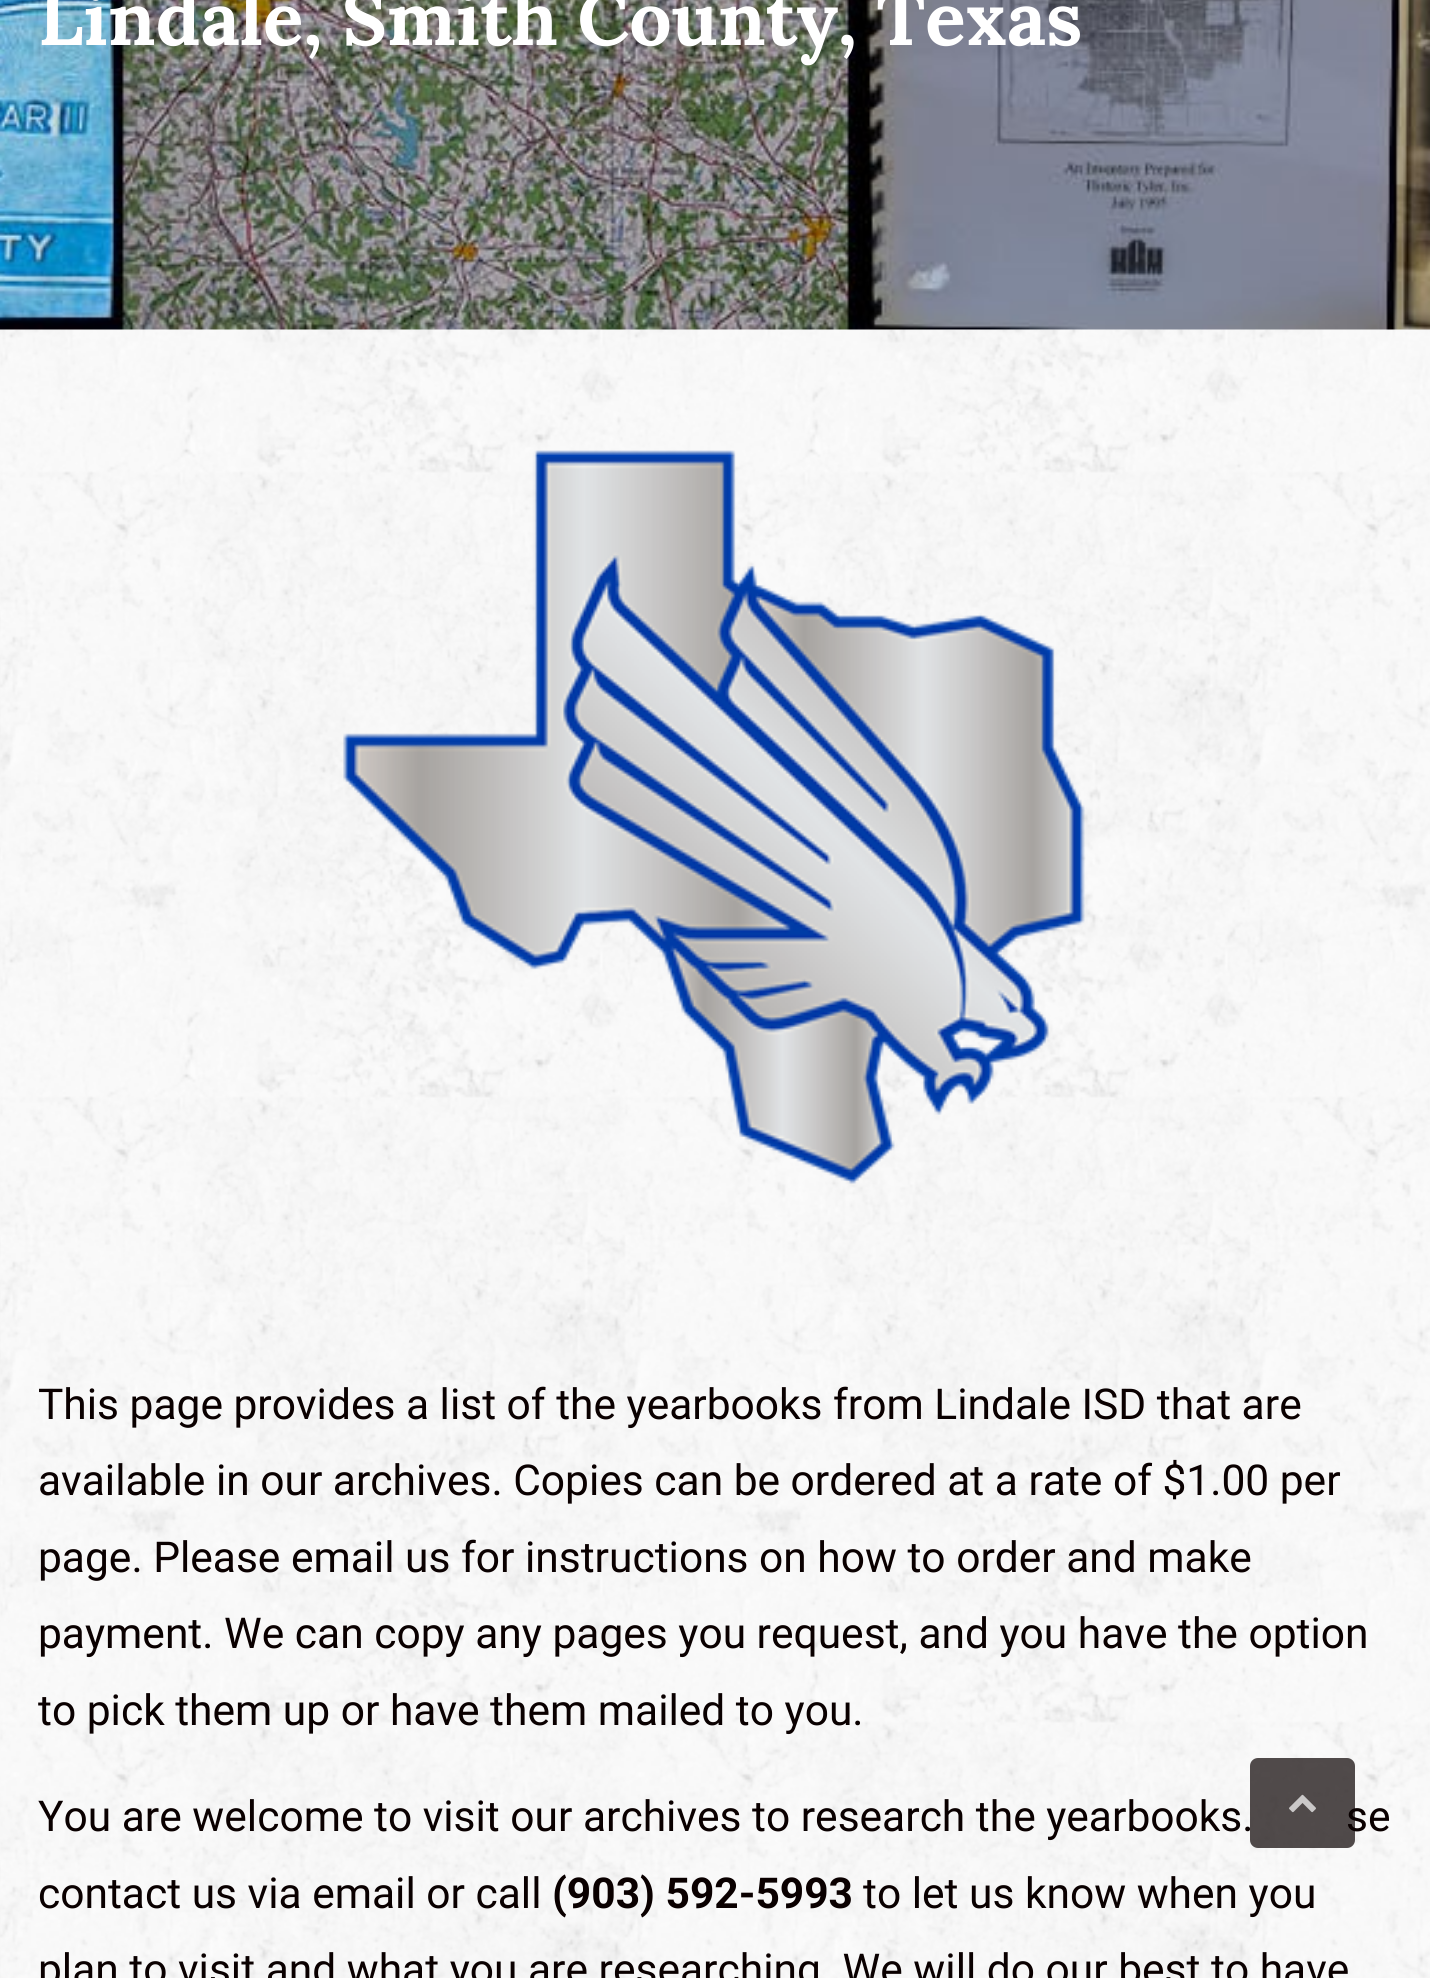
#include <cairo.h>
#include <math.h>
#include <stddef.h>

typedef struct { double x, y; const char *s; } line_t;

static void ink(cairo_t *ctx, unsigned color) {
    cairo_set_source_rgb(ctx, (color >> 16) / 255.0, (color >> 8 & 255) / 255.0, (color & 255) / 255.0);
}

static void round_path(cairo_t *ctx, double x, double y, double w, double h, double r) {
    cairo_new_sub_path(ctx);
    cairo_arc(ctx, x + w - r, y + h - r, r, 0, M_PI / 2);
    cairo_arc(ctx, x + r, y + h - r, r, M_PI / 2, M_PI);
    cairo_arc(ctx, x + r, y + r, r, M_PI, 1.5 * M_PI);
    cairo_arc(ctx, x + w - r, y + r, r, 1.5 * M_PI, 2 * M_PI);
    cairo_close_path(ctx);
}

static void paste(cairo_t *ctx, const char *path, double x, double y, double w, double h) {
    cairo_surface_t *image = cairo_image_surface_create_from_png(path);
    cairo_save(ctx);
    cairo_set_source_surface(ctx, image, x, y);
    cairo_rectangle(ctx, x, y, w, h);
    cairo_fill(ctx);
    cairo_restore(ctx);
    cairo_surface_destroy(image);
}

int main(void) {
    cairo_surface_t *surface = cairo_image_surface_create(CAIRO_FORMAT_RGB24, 1430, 1978);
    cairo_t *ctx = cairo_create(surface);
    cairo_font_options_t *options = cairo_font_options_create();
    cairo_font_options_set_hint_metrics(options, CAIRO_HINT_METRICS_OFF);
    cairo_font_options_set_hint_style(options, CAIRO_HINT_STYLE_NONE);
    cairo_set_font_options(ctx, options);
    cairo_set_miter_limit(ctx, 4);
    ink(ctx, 0xFFFFFF);
    cairo_paint(ctx);
    paste(ctx, "media/1.png", 0, 329, 1430, 1649);
    paste(ctx, "media/2.png", 0, 0, 1430, 330);
    cairo_select_font_face(ctx, "Lora", CAIRO_FONT_SLANT_NORMAL, CAIRO_FONT_WEIGHT_BOLD);
    cairo_set_font_size(ctx, 75);
    ink(ctx, 0xFFFFFF);
    cairo_move_to(ctx, 38, 45);
    cairo_show_text(ctx, "Lindale, Smith County, Texas");
    paste(ctx, "media/3.png", 343, 450, 742, 734);
    cairo_select_font_face(ctx, "Roboto", CAIRO_FONT_SLANT_NORMAL, CAIRO_FONT_WEIGHT_NORMAL);
    cairo_set_font_size(ctx, 42.5);
    ink(ctx, 0x0A0000);
    {
        static const line_t items[] = {
            {38, 1419, "This page provides a list of the yearbooks from Lindale ISD that are"},
            {38, 1495, "available in our archives. Copies can be ordered at a rate of $1.00 per"},
            {38, 1572, "page. Please email us for instructions on how to order and make"},
            {38, 1648, "payment. We can copy any pages you request, and you have the option"},
            {38, 1725, "to pick them up or have them mailed to you."},
            {38, 1831, "You are welcome to visit our archives to research the yearbooks."},
            {1346, 1831, "se"},
            {38, 1908, "contact us via email or call"},
        };
        for (size_t i = 0; i < sizeof items / sizeof *items; i++) {
            cairo_move_to(ctx, items[i].x, items[i].y);
            cairo_show_text(ctx, items[i].s);
        }
    }
    cairo_select_font_face(ctx, "Roboto", CAIRO_FONT_SLANT_NORMAL, CAIRO_FONT_WEIGHT_BOLD);
    cairo_move_to(ctx, 552, 1908);
    cairo_show_text(ctx, "(903) 592-5993");
    cairo_select_font_face(ctx, "Roboto", CAIRO_FONT_SLANT_NORMAL, CAIRO_FONT_WEIGHT_NORMAL);
    cairo_move_to(ctx, 863, 1908);
    cairo_show_text(ctx, "to let us know when you");
    cairo_move_to(ctx, 38, 1984);
    cairo_show_text(ctx, "plan to visit and what you are researching. We will do our best to have");
    cairo_set_source_rgba(ctx, 0.039, 0, 0, 0.7);
    round_path(ctx, 1250, 1758, 105, 90, 8);
    cairo_fill(ctx);
    paste(ctx, "media/4.png", 1289, 1794, 27, 19);
    cairo_surface_write_to_png(surface, "image.png");
    cairo_font_options_destroy(options);
    cairo_destroy(ctx);
    cairo_surface_destroy(surface);
    return 0;
}
